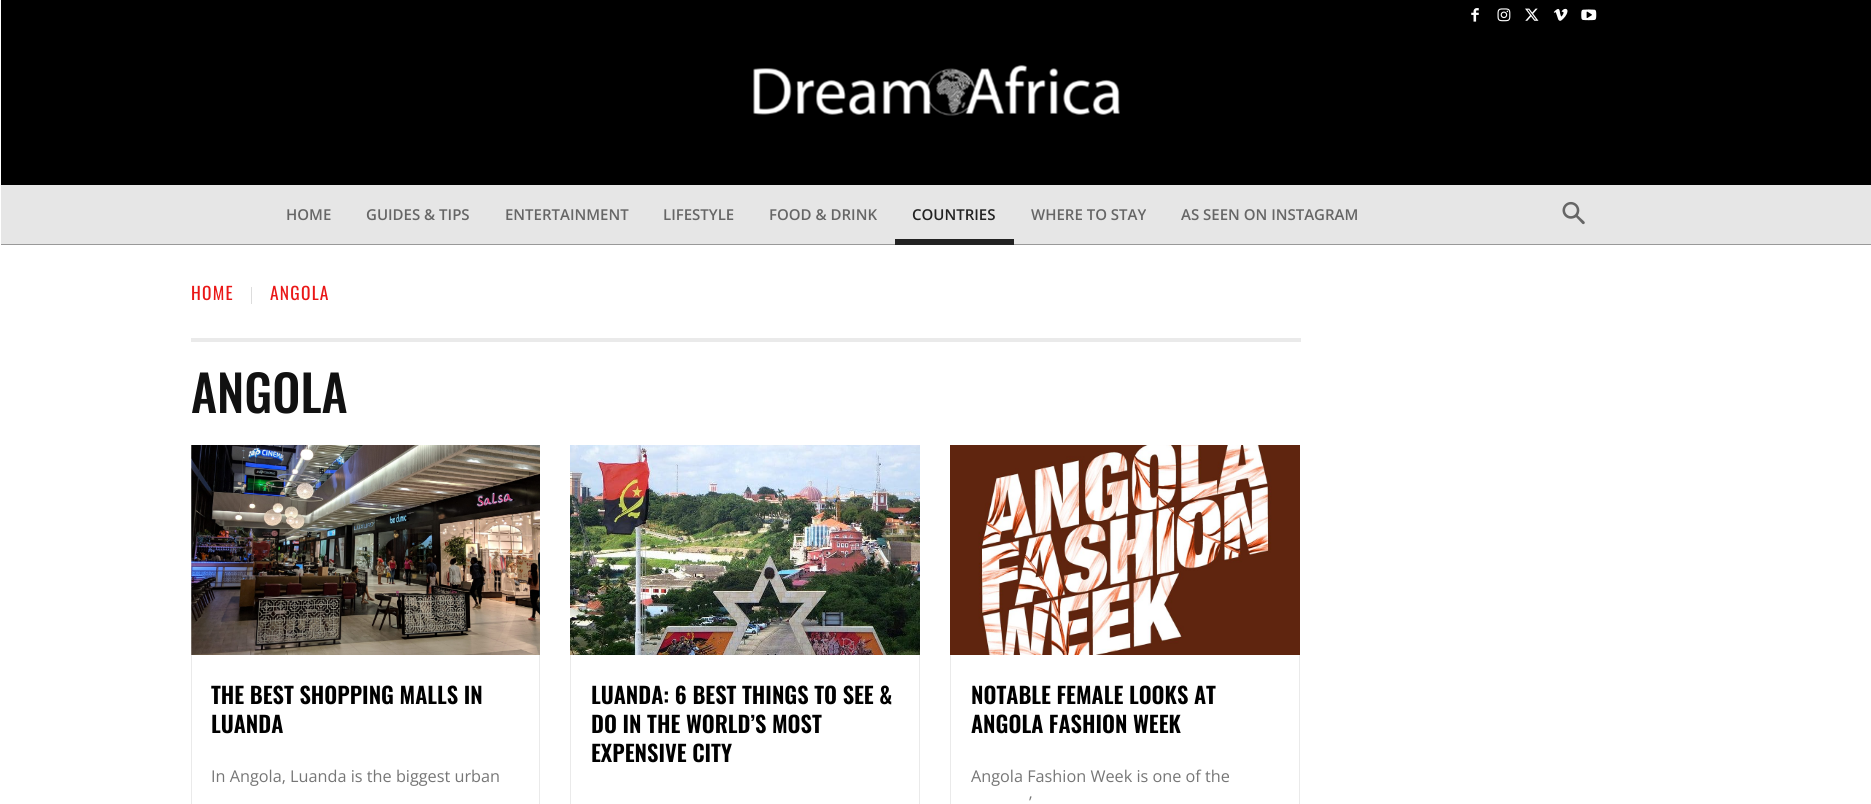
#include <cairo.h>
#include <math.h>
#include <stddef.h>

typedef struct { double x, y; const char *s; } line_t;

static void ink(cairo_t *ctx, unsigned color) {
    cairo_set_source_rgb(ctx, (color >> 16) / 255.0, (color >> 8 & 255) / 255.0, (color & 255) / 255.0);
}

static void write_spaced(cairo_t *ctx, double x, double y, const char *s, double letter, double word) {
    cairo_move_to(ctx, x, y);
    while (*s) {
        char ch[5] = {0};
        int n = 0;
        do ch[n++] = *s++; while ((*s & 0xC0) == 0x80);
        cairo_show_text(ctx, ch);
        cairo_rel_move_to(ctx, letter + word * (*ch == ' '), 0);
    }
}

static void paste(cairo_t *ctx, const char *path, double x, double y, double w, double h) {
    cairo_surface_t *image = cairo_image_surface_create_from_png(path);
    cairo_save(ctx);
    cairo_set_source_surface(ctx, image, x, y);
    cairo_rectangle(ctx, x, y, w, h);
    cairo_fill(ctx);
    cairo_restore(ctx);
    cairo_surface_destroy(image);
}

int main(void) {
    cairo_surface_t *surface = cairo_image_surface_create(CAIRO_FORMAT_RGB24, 1871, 804);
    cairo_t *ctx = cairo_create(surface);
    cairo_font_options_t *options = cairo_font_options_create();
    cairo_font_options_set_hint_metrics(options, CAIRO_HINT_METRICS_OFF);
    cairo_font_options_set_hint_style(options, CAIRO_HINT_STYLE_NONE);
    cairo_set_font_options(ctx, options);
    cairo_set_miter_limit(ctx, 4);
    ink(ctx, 0xFFFFFF);
    cairo_paint(ctx);
    ink(ctx, 0x000000);
    cairo_rectangle(ctx, 1, 0, 1870, 185);
    cairo_fill(ctx);
    paste(ctx, "media/1.png", 1471, 8, 8, 14);
    paste(ctx, "media/2.png", 1497, 8, 14, 14);
    paste(ctx, "media/3.png", 1525, 8, 14, 13);
    paste(ctx, "media/4.png", 1553, 8, 15, 13);
    paste(ctx, "media/5.png", 1581, 9, 16, 12);
    paste(ctx, "media/6.png", 753, 65, 367, 51);
    ink(ctx, 0xE6E6E6);
    cairo_rectangle(ctx, 1, 185, 1870, 59);
    cairo_fill(ctx);
    ink(ctx, 0x999999);
    cairo_rectangle(ctx, 1, 244, 1870, 1);
    cairo_fill(ctx);
    cairo_select_font_face(ctx, "Open Sans SemiBold", CAIRO_FONT_SLANT_NORMAL, CAIRO_FONT_WEIGHT_NORMAL);
    cairo_set_font_size(ctx, 15);
    ink(ctx, 0x666666);
    {
        static const line_t items[] = {
            {286, 220, "HOME"},
            {366, 220, "GUIDES & TIPS"},
            {505, 220, "ENTERTAINMENT"},
            {663, 220, "LIFESTYLE"},
            {769, 220, "FOOD & DRINK"},
        };
        for (size_t i = 0; i < sizeof items / sizeof *items; i++) {
            cairo_move_to(ctx, items[i].x, items[i].y);
            cairo_show_text(ctx, items[i].s);
        }
    }
    ink(ctx, 0x222222);
    cairo_move_to(ctx, 912, 220);
    cairo_show_text(ctx, "COUNTRIES");
    cairo_rectangle(ctx, 895, 239, 119, 6);
    cairo_fill(ctx);
    ink(ctx, 0x666666);
    cairo_move_to(ctx, 1031, 220);
    cairo_show_text(ctx, "WHERE TO STAY");
    cairo_move_to(ctx, 1181, 220);
    cairo_show_text(ctx, "AS SEEN ON INSTAGRAM");
    paste(ctx, "media/7.png", 1562, 201, 23, 24);
    cairo_select_font_face(ctx, "Oswald", CAIRO_FONT_SLANT_NORMAL, CAIRO_FONT_WEIGHT_NORMAL);
    cairo_set_font_size(ctx, 17.5);
    ink(ctx, 0xEA1717);
    write_spaced(ctx, 191, 300, "HOME", 1.25, 0);
    ink(ctx, 0xDDDDDD);
    cairo_rectangle(ctx, 251, 287, 1, 17);
    cairo_fill(ctx);
    ink(ctx, 0xEA1717);
    write_spaced(ctx, 270, 300, "ANGOLA", 1.25, 0);
    ink(ctx, 0xEAEAEA);
    cairo_rectangle(ctx, 191, 338, 1110, 4);
    cairo_fill(ctx);
    cairo_select_font_face(ctx, "Oswald Medium", CAIRO_FONT_SLANT_NORMAL, CAIRO_FONT_WEIGHT_NORMAL);
    cairo_set_font_size(ctx, 50);
    ink(ctx, 0x111111);
    cairo_move_to(ctx, 191, 413);
    cairo_show_text(ctx, "ANGOLA");
    paste(ctx, "media/8.png", 191, 445, 349, 210);
    ink(ctx, 0xEAEAEA);
    cairo_rectangle(ctx, 539, 655, 1, 149);
    cairo_fill(ctx);
    cairo_rectangle(ctx, 191, 655, 1, 149);
    cairo_fill(ctx);
    cairo_select_font_face(ctx, "Oswald SemiBold", CAIRO_FONT_SLANT_NORMAL, CAIRO_FONT_WEIGHT_NORMAL);
    cairo_set_font_size(ctx, 22.5);
    ink(ctx, 0x000000);
    cairo_move_to(ctx, 211, 704);
    cairo_show_text(ctx, "THE BEST SHOPPING MALLS IN");
    cairo_move_to(ctx, 211, 733);
    cairo_show_text(ctx, "LUANDA");
    cairo_select_font_face(ctx, "Open Sans", CAIRO_FONT_SLANT_NORMAL, CAIRO_FONT_WEIGHT_NORMAL);
    cairo_set_font_size(ctx, 16.25);
    ink(ctx, 0x767676);
    cairo_move_to(ctx, 211, 782);
    cairo_show_text(ctx, "In Angola, Luanda is the biggest urban");
    paste(ctx, "media/9.png", 570, 445, 350, 210);
    ink(ctx, 0xEAEAEA);
    cairo_rectangle(ctx, 919, 655, 1, 149);
    cairo_fill(ctx);
    cairo_rectangle(ctx, 570, 655, 1, 149);
    cairo_fill(ctx);
    cairo_select_font_face(ctx, "Oswald SemiBold", CAIRO_FONT_SLANT_NORMAL, CAIRO_FONT_WEIGHT_NORMAL);
    cairo_set_font_size(ctx, 22.5);
    ink(ctx, 0x000000);
    {
        static const line_t items[] = {
            {591, 704, "LUANDA: 6 BEST THINGS TO SEE &"},
            {591, 733, "DO IN THE WORLD’S MOST"},
            {591, 762, "EXPENSIVE CITY"},
        };
        for (size_t i = 0; i < sizeof items / sizeof *items; i++) {
            cairo_move_to(ctx, items[i].x, items[i].y);
            cairo_show_text(ctx, items[i].s);
        }
    }
    paste(ctx, "media/10.png", 950, 445, 350, 210);
    ink(ctx, 0xEAEAEA);
    cairo_rectangle(ctx, 1299, 655, 1, 149);
    cairo_fill(ctx);
    cairo_rectangle(ctx, 950, 655, 1, 149);
    cairo_fill(ctx);
    ink(ctx, 0x000000);
    cairo_move_to(ctx, 971, 704);
    cairo_show_text(ctx, "NOTABLE FEMALE LOOKS AT");
    cairo_move_to(ctx, 971, 733);
    cairo_show_text(ctx, "ANGOLA FASHION WEEK");
    cairo_select_font_face(ctx, "Open Sans", CAIRO_FONT_SLANT_NORMAL, CAIRO_FONT_WEIGHT_NORMAL);
    cairo_set_font_size(ctx, 16.25);
    ink(ctx, 0x767676);
    cairo_move_to(ctx, 971, 782);
    cairo_show_text(ctx, "Angola Fashion Week is one of the");
    cairo_move_to(ctx, 1029, 808);
    cairo_show_text(ctx, "’");
    cairo_surface_write_to_png(surface, "image.png");
    cairo_font_options_destroy(options);
    cairo_destroy(ctx);
    cairo_surface_destroy(surface);
    return 0;
}
